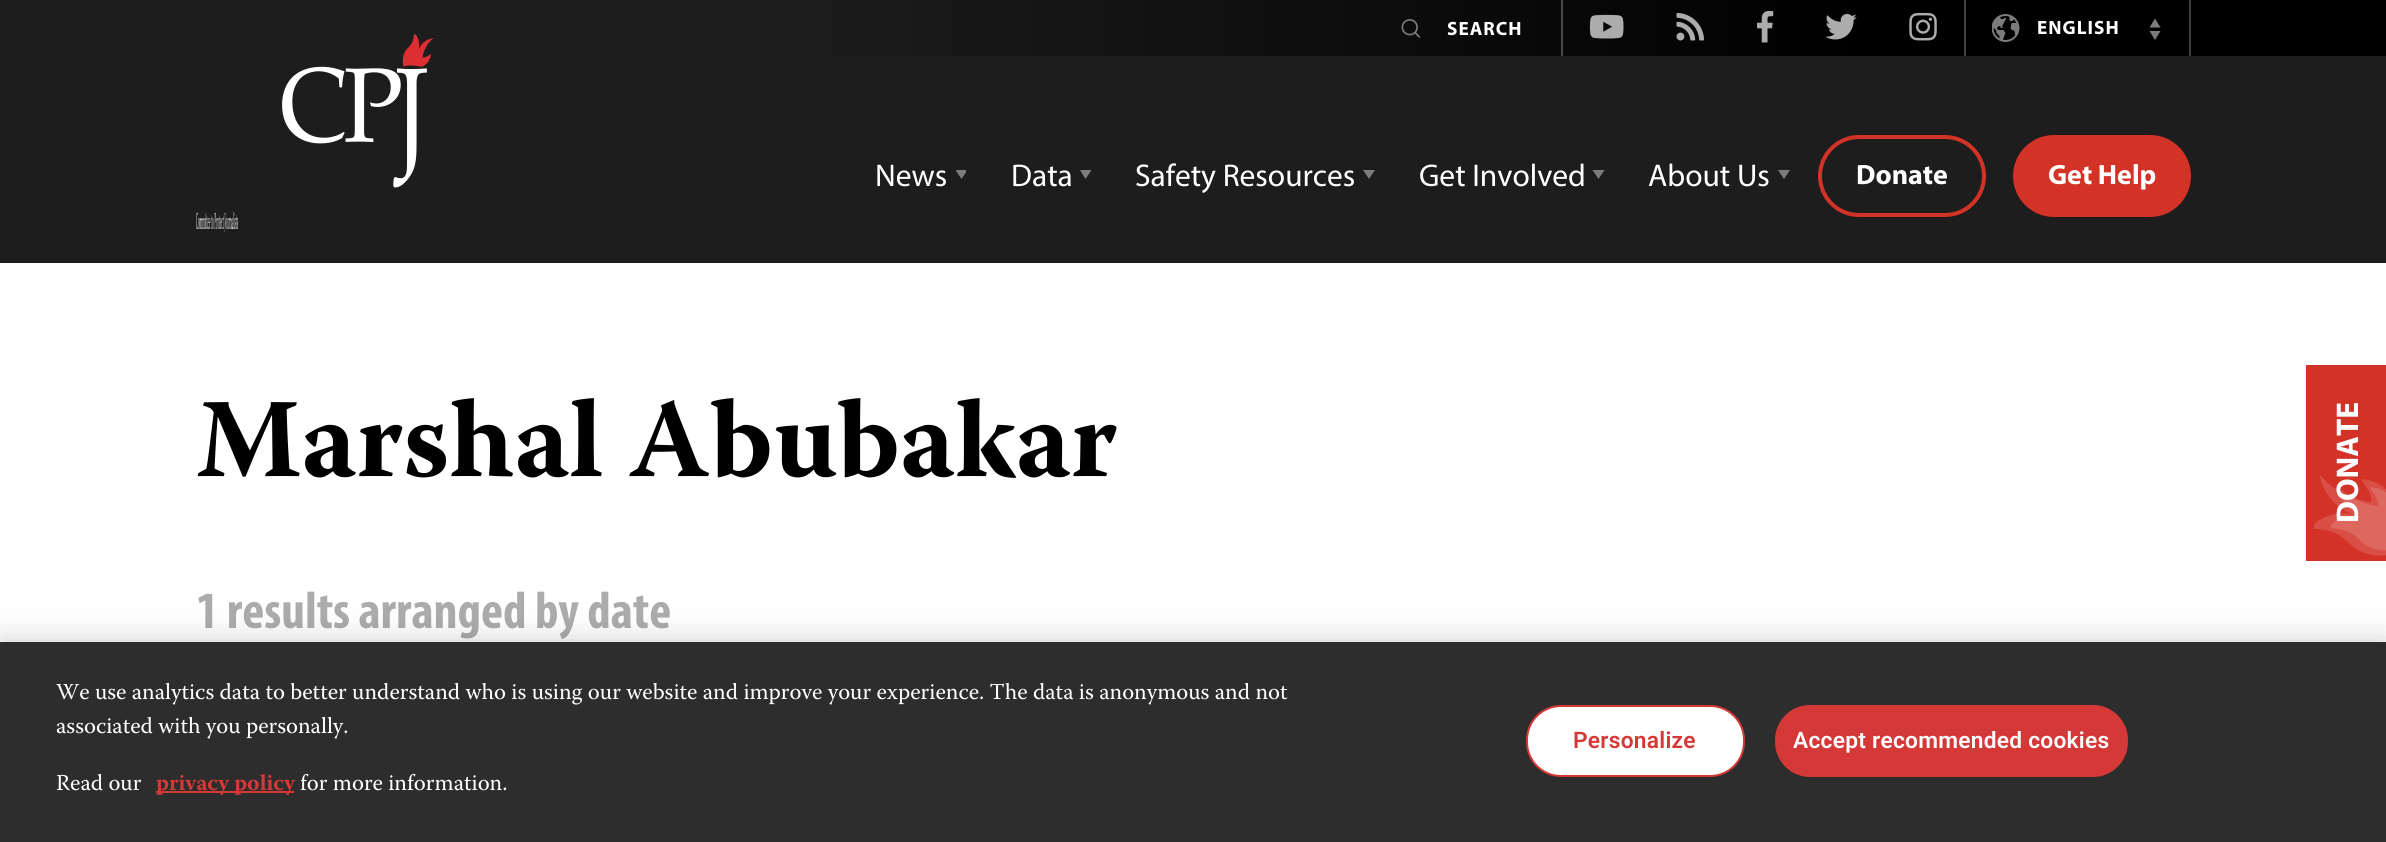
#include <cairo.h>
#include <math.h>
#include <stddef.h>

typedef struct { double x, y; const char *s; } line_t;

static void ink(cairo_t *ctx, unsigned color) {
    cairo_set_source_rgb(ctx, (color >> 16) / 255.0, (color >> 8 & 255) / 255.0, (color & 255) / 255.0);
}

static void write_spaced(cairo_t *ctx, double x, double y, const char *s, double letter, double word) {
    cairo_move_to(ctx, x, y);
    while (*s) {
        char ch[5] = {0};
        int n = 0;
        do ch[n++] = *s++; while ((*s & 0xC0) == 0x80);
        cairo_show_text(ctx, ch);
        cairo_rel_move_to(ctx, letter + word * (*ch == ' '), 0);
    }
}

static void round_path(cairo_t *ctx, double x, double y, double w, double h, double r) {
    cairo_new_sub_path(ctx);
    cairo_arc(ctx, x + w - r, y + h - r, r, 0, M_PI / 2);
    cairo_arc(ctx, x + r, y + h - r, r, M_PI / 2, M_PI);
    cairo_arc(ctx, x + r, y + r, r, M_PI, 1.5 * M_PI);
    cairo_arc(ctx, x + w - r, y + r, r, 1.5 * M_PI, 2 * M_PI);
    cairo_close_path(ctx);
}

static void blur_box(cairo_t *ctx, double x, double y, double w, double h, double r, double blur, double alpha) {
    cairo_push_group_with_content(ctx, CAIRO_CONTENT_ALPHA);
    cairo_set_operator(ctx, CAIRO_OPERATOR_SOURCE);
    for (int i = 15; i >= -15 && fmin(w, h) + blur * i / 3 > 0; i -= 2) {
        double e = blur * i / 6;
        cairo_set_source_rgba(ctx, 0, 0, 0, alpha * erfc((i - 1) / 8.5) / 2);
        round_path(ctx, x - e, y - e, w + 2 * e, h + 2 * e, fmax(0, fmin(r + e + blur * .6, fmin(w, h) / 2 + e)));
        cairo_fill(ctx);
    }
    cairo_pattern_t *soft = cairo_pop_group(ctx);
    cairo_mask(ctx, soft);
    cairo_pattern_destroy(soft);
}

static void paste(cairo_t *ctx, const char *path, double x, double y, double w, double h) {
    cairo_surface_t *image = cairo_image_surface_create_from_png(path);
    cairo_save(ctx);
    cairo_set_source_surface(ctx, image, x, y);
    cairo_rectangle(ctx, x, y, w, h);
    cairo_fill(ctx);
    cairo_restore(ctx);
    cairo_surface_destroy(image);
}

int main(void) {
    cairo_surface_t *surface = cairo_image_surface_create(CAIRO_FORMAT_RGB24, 2386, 842);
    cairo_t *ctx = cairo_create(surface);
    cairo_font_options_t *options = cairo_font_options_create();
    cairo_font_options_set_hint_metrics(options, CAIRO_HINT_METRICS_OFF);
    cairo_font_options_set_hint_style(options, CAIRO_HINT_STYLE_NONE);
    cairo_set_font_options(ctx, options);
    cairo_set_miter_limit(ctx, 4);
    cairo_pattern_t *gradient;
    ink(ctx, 0xFFFFFF);
    cairo_paint(ctx);
    ink(ctx, 0x1D1D1D);
    cairo_rectangle(ctx, 0, 0, 2386, 263);
    cairo_fill(ctx);
    gradient = cairo_pattern_create_linear(2217, 28, 551, 28);
    cairo_pattern_add_color_stop_rgba(gradient, 0.21, 0, 0, 0, 1);
    cairo_pattern_add_color_stop_rgba(gradient, 0.89, 0.114, 0.114, 0.114, 1);
    cairo_set_source(ctx, gradient);
    cairo_pattern_destroy(gradient);
    cairo_rectangle(ctx, 832, 0, 1385, 56);
    cairo_fill(ctx);
    ink(ctx, 0x464646);
    cairo_rectangle(ctx, 1561, 0, 2, 56);
    cairo_fill(ctx);
    paste(ctx, "media/1.png", 1401, 19, 20, 19);
    cairo_select_font_face(ctx, "Myriad", CAIRO_FONT_SLANT_NORMAL, CAIRO_FONT_WEIGHT_BOLD);
    cairo_set_font_size(ctx, 19.25);
    ink(ctx, 0xFFFFFF);
    write_spaced(ctx, 1447, 35, "SEARCH", 1, 0);
    ink(ctx, 0x404040);
    cairo_rectangle(ctx, 1964, 0, 2, 56);
    cairo_fill(ctx);
    paste(ctx, "media/2.png", 1589, 14, 35, 25);
    paste(ctx, "media/3.png", 1676, 12, 29, 29);
    paste(ctx, "media/4.png", 1757, 10, 17, 33);
    paste(ctx, "media/5.png", 1825, 13, 32, 27);
    paste(ctx, "media/6.png", 1909, 12, 28, 29);
    cairo_rectangle(ctx, 2189, 0, 2, 56);
    cairo_fill(ctx);
    paste(ctx, "media/7.png", 1992, 14, 28, 28);
    ink(ctx, 0xFFFFFF);
    write_spaced(ctx, 2037, 34, "ENGLISH", 1, 0);
    ink(ctx, 0x7C7C7C);
    cairo_new_path(ctx);
    cairo_move_to(ctx, 2155, 40);
    cairo_line_to(ctx, 2149.5, 31);
    cairo_line_to(ctx, 2160.5, 31);
    cairo_close_path(ctx);
    cairo_move_to(ctx, 2155, 18.5);
    cairo_line_to(ctx, 2160.5, 27.5);
    cairo_line_to(ctx, 2149.5, 27.5);
    cairo_close_path(ctx);
    cairo_fill(ctx);
    ink(ctx, 0x000000);
    cairo_rectangle(ctx, 2217, 0, 169, 56);
    cairo_fill(ctx);
    paste(ctx, "media/8.png", 282, 34, 152, 154);
    paste(ctx, "media/9.png", 196, 212, 42, 21);
    cairo_select_font_face(ctx, "Myriad", CAIRO_FONT_SLANT_NORMAL, CAIRO_FONT_WEIGHT_NORMAL);
    cairo_set_font_size(ctx, 31.5);
    ink(ctx, 0xFFFFFF);
    cairo_move_to(ctx, 875, 186);
    cairo_show_text(ctx, "News");
    cairo_save(ctx);
    cairo_rectangle(ctx, 956, 170, 10, 10);
    cairo_clip(ctx);
    ink(ctx, 0x7C7C7C);
    cairo_new_path(ctx);
    cairo_move_to(ctx, 961.5, 179);
    cairo_line_to(ctx, 955.5, 170);
    cairo_line_to(ctx, 967.5, 170);
    cairo_close_path(ctx);
    cairo_fill(ctx);
    cairo_restore(ctx);
    cairo_move_to(ctx, 1011, 186);
    cairo_show_text(ctx, "Data");
    ink(ctx, 0x7C7C7C);
    cairo_new_path(ctx);
    cairo_move_to(ctx, 1085.5, 179);
    cairo_line_to(ctx, 1080, 170);
    cairo_line_to(ctx, 1091.5, 170);
    cairo_close_path(ctx);
    cairo_fill(ctx);
    ink(ctx, 0xFFFFFF);
    cairo_move_to(ctx, 1135, 186);
    cairo_show_text(ctx, "Safety Resources");
    ink(ctx, 0x7C7C7C);
    cairo_new_path(ctx);
    cairo_move_to(ctx, 1369, 179);
    cairo_line_to(ctx, 1363, 170);
    cairo_line_to(ctx, 1375, 170);
    cairo_close_path(ctx);
    cairo_fill(ctx);
    ink(ctx, 0xFFFFFF);
    cairo_move_to(ctx, 1419, 186);
    cairo_show_text(ctx, "Get Involved");
    ink(ctx, 0x7C7C7C);
    cairo_new_path(ctx);
    cairo_move_to(ctx, 1598.5, 179);
    cairo_line_to(ctx, 1592.5, 170);
    cairo_line_to(ctx, 1604.5, 170);
    cairo_close_path(ctx);
    cairo_fill(ctx);
    ink(ctx, 0xFFFFFF);
    cairo_move_to(ctx, 1648, 186);
    cairo_show_text(ctx, "About Us");
    ink(ctx, 0x7C7C7C);
    cairo_new_path(ctx);
    cairo_move_to(ctx, 1784, 179);
    cairo_line_to(ctx, 1778, 170);
    cairo_line_to(ctx, 1790, 170);
    cairo_close_path(ctx);
    cairo_fill(ctx);
    round_path(ctx, 1820, 137, 164, 78, 39);
    ink(ctx, 0xD33227);
    cairo_set_line_width(ctx, 4);
    cairo_stroke(ctx);
    cairo_select_font_face(ctx, "Myriad", CAIRO_FONT_SLANT_NORMAL, CAIRO_FONT_WEIGHT_BOLD);
    cairo_set_font_size(ctx, 28);
    ink(ctx, 0xFFFFFF);
    cairo_move_to(ctx, 1856, 184);
    cairo_show_text(ctx, "Donate");
    ink(ctx, 0xD33227);
    round_path(ctx, 2013, 135, 178, 82, 41);
    cairo_fill(ctx);
    ink(ctx, 0xFFFFFF);
    cairo_move_to(ctx, 2048, 184);
    cairo_show_text(ctx, "Get Help");
    cairo_select_font_face(ctx, "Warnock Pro", CAIRO_FONT_SLANT_NORMAL, CAIRO_FONT_WEIGHT_BOLD);
    cairo_set_font_size(ctx, 112);
    ink(ctx, 0x000000);
    cairo_move_to(ctx, 196, 476);
    cairo_show_text(ctx, "Marshal Abubakar");
    cairo_select_font_face(ctx, "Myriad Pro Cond", CAIRO_FONT_SLANT_NORMAL, CAIRO_FONT_WEIGHT_BOLD);
    cairo_set_font_size(ctx, 52.5);
    ink(ctx, 0xACACAC);
    cairo_move_to(ctx, 196, 628);
    cairo_show_text(ctx, "1 results arranged by date");
    ink(ctx, 0xD33227);
    cairo_rectangle(ctx, 2306, 365, 80, 196);
    cairo_fill(ctx);
    paste(ctx, "media/10.png", 2314, 476, 72, 80);
    paste(ctx, "media/11.png", 2331, 485, 55, 66);
    cairo_select_font_face(ctx, "Myriad", CAIRO_FONT_SLANT_NORMAL, CAIRO_FONT_WEIGHT_BOLD);
    cairo_set_font_size(ctx, 31.5);
    ink(ctx, 0xFFFFFF);
    cairo_save(ctx);
    cairo_translate(ctx, 2358, 523);
    cairo_rotate(ctx, -90 * M_PI / 180);
    cairo_move_to(ctx, 0, 0);
    cairo_show_text(ctx, "DONATE");
    cairo_restore(ctx);
    ink(ctx, 0x000000);
    blur_box(ctx, 0, 642, 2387, 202, 0, 16, 0.2);
    ink(ctx, 0x2D2D2D);
    cairo_rectangle(ctx, 0, 642, 2386, 200);
    cairo_fill(ctx);
    cairo_select_font_face(ctx, "Warnock Pro", CAIRO_FONT_SLANT_NORMAL, CAIRO_FONT_WEIGHT_NORMAL);
    cairo_set_font_size(ctx, 22.75);
    ink(ctx, 0xFFFFFF);
    {
        static const line_t items[] = {
            {56, 699, "We use analytics data to better understand who is using our website and improve your experience. The data is anonymous and not"},
            {56, 733, "associated with you personally."},
            {56, 790, "Read our"},
        };
        for (size_t i = 0; i < sizeof items / sizeof *items; i++) {
            cairo_move_to(ctx, items[i].x, items[i].y);
            cairo_show_text(ctx, items[i].s);
        }
    }
    ink(ctx, 0xD43837);
    cairo_rectangle(ctx, 156, 791, 138, 2);
    cairo_fill(ctx);
    cairo_select_font_face(ctx, "Warnock Pro", CAIRO_FONT_SLANT_NORMAL, CAIRO_FONT_WEIGHT_BOLD);
    cairo_move_to(ctx, 156, 790);
    cairo_show_text(ctx, "privacy policy");
    cairo_select_font_face(ctx, "Warnock Pro", CAIRO_FONT_SLANT_NORMAL, CAIRO_FONT_WEIGHT_NORMAL);
    ink(ctx, 0xFFFFFF);
    cairo_move_to(ctx, 300, 790);
    cairo_show_text(ctx, "for more information.");
    round_path(ctx, 1527, 706, 217, 70, 34);
    cairo_fill_preserve(ctx);
    ink(ctx, 0xD43837);
    cairo_set_line_width(ctx, 2);
    cairo_stroke(ctx);
    cairo_select_font_face(ctx, "Roboto SemiBold", CAIRO_FONT_SLANT_NORMAL, CAIRO_FONT_WEIGHT_NORMAL);
    write_spaced(ctx, 1573, 748, "Personalize", 0.25, 0);
    round_path(ctx, 1776, 706, 351, 70, 34);
    cairo_fill_preserve(ctx);
    cairo_stroke(ctx);
    ink(ctx, 0xFFFFFF);
    write_spaced(ctx, 1793, 748, "Accept recommended cookies", 0.25, 0);
    cairo_surface_write_to_png(surface, "image.png");
    cairo_font_options_destroy(options);
    cairo_destroy(ctx);
    cairo_surface_destroy(surface);
    return 0;
}
